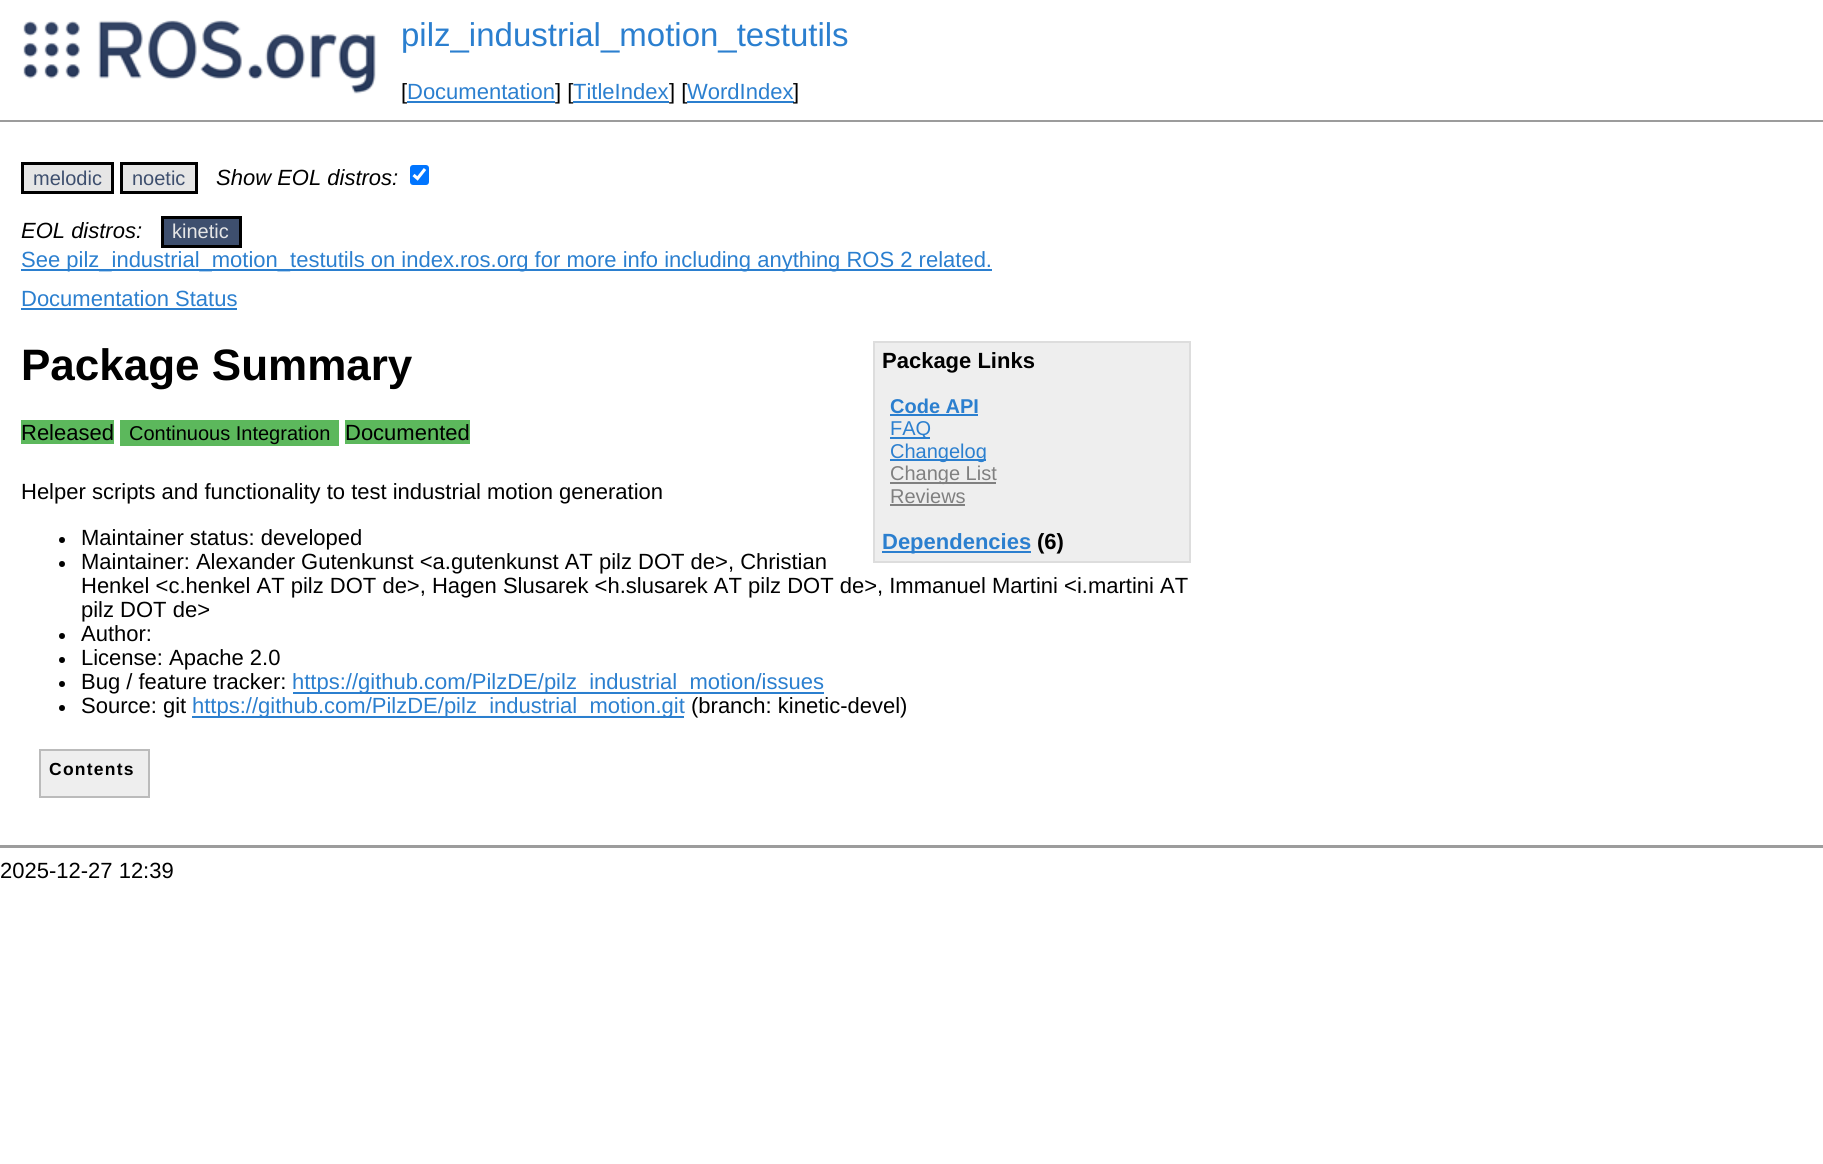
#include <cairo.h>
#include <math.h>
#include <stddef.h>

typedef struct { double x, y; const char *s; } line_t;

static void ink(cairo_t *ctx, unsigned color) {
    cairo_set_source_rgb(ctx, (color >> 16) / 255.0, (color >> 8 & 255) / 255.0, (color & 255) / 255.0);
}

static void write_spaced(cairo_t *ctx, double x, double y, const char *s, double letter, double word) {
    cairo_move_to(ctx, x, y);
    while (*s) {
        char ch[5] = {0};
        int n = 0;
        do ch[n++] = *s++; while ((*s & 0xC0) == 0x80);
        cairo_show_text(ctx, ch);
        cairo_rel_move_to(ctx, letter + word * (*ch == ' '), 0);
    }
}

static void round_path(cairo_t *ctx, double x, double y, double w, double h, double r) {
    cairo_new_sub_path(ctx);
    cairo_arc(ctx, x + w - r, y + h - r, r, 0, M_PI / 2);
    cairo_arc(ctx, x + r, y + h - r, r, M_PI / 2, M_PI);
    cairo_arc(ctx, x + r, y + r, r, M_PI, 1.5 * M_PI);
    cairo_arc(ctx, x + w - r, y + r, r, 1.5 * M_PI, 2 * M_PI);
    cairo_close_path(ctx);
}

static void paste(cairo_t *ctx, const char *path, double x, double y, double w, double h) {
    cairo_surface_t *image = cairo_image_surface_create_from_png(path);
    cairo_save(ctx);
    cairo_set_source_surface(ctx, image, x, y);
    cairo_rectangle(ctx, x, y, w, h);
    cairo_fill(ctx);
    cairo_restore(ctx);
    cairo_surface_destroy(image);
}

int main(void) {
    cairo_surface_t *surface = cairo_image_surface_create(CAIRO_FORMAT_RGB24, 1823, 1164);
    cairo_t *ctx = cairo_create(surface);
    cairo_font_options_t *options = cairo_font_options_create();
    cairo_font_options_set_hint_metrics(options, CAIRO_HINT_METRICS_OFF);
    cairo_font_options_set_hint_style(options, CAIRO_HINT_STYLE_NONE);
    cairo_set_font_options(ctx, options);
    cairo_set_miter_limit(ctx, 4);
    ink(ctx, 0xFFFFFF);
    cairo_paint(ctx);
    paste(ctx, "media/1.png", 23, 20, 353, 74);
    cairo_select_font_face(ctx, "Liberation Sans", CAIRO_FONT_SLANT_NORMAL, CAIRO_FONT_WEIGHT_NORMAL);
    cairo_set_font_size(ctx, 33);
    ink(ctx, 0x2B7FCF);
    cairo_move_to(ctx, 401, 46);
    cairo_show_text(ctx, "pilz_industrial_motion_testutils");
    cairo_set_font_size(ctx, 22);
    ink(ctx, 0x000000);
    cairo_move_to(ctx, 401, 99);
    cairo_show_text(ctx, "[");
    ink(ctx, 0x2B7FCF);
    cairo_move_to(ctx, 407, 99);
    cairo_show_text(ctx, "Documentation");
    cairo_rectangle(ctx, 407, 101, 148, 2);
    cairo_fill(ctx);
    ink(ctx, 0x000000);
    cairo_move_to(ctx, 555, 99);
    cairo_show_text(ctx, "] [");
    ink(ctx, 0x2B7FCF);
    cairo_move_to(ctx, 573, 99);
    cairo_show_text(ctx, "TitleIndex");
    cairo_rectangle(ctx, 573, 101, 96, 2);
    cairo_fill(ctx);
    ink(ctx, 0x000000);
    cairo_move_to(ctx, 669, 99);
    cairo_show_text(ctx, "] [");
    ink(ctx, 0x2B7FCF);
    cairo_move_to(ctx, 687, 99);
    cairo_show_text(ctx, "WordIndex");
    cairo_rectangle(ctx, 687, 101, 107, 2);
    cairo_fill(ctx);
    ink(ctx, 0x000000);
    cairo_move_to(ctx, 793, 99);
    cairo_show_text(ctx, "]");
    ink(ctx, 0x9C9C9C);
    cairo_rectangle(ctx, 0, 120, 1823, 2);
    cairo_fill(ctx);
    ink(ctx, 0xE6E6E6);
    cairo_rectangle(ctx, 22.5, 163.5, 90, 29);
    cairo_fill_preserve(ctx);
    ink(ctx, 0x000000);
    cairo_set_line_width(ctx, 3);
    cairo_stroke(ctx);
    cairo_set_font_size(ctx, 20);
    ink(ctx, 0x3E4F6E);
    cairo_move_to(ctx, 33, 185);
    cairo_show_text(ctx, "melodic");
    ink(ctx, 0xE6E6E6);
    cairo_rectangle(ctx, 121.5, 163.5, 75, 29);
    cairo_fill_preserve(ctx);
    ink(ctx, 0x000000);
    cairo_stroke(ctx);
    ink(ctx, 0x3E4F6E);
    cairo_move_to(ctx, 132, 185);
    cairo_show_text(ctx, "noetic");
    cairo_select_font_face(ctx, "Liberation Sans", CAIRO_FONT_SLANT_ITALIC, CAIRO_FONT_WEIGHT_NORMAL);
    cairo_set_font_size(ctx, 22);
    ink(ctx, 0x000000);
    cairo_move_to(ctx, 216, 185);
    cairo_show_text(ctx, "Show EOL distros:");
    ink(ctx, 0x0075FF);
    round_path(ctx, 410, 165, 19, 20, 3);
    cairo_fill(ctx);
    cairo_new_path(ctx);
    cairo_move_to(ctx, 413.5, 175);
    cairo_line_to(ctx, 417.5, 178.5);
    cairo_line_to(ctx, 425, 169);
    ink(ctx, 0xFFFFFF);
    cairo_set_line_width(ctx, 3.1);
    cairo_stroke(ctx);
    ink(ctx, 0x000000);
    cairo_move_to(ctx, 21, 238);
    cairo_show_text(ctx, "EOL distros:");
    ink(ctx, 0x3E4F6E);
    cairo_rectangle(ctx, 162.5, 217.5, 78, 29);
    cairo_fill_preserve(ctx);
    ink(ctx, 0x000000);
    cairo_set_line_width(ctx, 3);
    cairo_stroke(ctx);
    cairo_select_font_face(ctx, "Liberation Sans", CAIRO_FONT_SLANT_NORMAL, CAIRO_FONT_WEIGHT_NORMAL);
    cairo_set_font_size(ctx, 20);
    ink(ctx, 0xE6E6E6);
    cairo_move_to(ctx, 172, 238);
    cairo_show_text(ctx, "kinetic");
    ink(ctx, 0x2B7FCF);
    cairo_rectangle(ctx, 21, 269, 971, 2);
    cairo_fill(ctx);
    cairo_set_font_size(ctx, 22);
    cairo_move_to(ctx, 21, 267);
    cairo_show_text(ctx, "See pilz_industrial_motion_testutils on index.ros.org for more info including anything ROS 2 related.");
    cairo_move_to(ctx, 21, 306);
    cairo_show_text(ctx, "Documentation Status");
    cairo_rectangle(ctx, 21, 308, 216, 2);
    cairo_fill(ctx);
    cairo_select_font_face(ctx, "Liberation Sans", CAIRO_FONT_SLANT_NORMAL, CAIRO_FONT_WEIGHT_BOLD);
    cairo_set_font_size(ctx, 44);
    ink(ctx, 0x000000);
    cairo_move_to(ctx, 21, 380);
    cairo_show_text(ctx, "Package Summary");
    ink(ctx, 0xEEEEEE);
    cairo_rectangle(ctx, 874, 342, 316, 220);
    cairo_fill_preserve(ctx);
    ink(ctx, 0xDDDDDD);
    cairo_set_line_width(ctx, 2);
    cairo_stroke(ctx);
    cairo_set_font_size(ctx, 22);
    ink(ctx, 0x000000);
    cairo_move_to(ctx, 882, 368);
    cairo_show_text(ctx, "Package Links");
    cairo_set_font_size(ctx, 20);
    ink(ctx, 0x2B7FCF);
    cairo_move_to(ctx, 890, 413);
    cairo_show_text(ctx, "Code API");
    cairo_rectangle(ctx, 890, 414, 88, 2);
    cairo_fill(ctx);
    cairo_rectangle(ctx, 890, 437, 40, 2);
    cairo_fill(ctx);
    cairo_select_font_face(ctx, "Liberation Sans", CAIRO_FONT_SLANT_NORMAL, CAIRO_FONT_WEIGHT_NORMAL);
    cairo_move_to(ctx, 890, 435);
    cairo_show_text(ctx, "FAQ");
    cairo_rectangle(ctx, 890, 459, 96, 2);
    cairo_fill(ctx);
    cairo_move_to(ctx, 890, 458);
    cairo_show_text(ctx, "Changelog");
    ink(ctx, 0x808080);
    cairo_rectangle(ctx, 890, 482, 106, 2);
    cairo_fill(ctx);
    cairo_move_to(ctx, 890, 480);
    cairo_show_text(ctx, "Change List");
    cairo_move_to(ctx, 890, 503);
    cairo_show_text(ctx, "Reviews");
    cairo_rectangle(ctx, 890, 504, 75, 2);
    cairo_fill(ctx);
    ink(ctx, 0x2B7FCF);
    cairo_rectangle(ctx, 882, 551, 149, 2);
    cairo_fill(ctx);
    cairo_select_font_face(ctx, "Liberation Sans", CAIRO_FONT_SLANT_NORMAL, CAIRO_FONT_WEIGHT_BOLD);
    cairo_set_font_size(ctx, 22);
    cairo_move_to(ctx, 882, 549);
    cairo_show_text(ctx, "Dependencies");
    ink(ctx, 0x000000);
    cairo_move_to(ctx, 1037, 549);
    cairo_show_text(ctx, "(6)");
    ink(ctx, 0x5CB85C);
    cairo_rectangle(ctx, 21, 420, 93, 24);
    cairo_fill(ctx);
    cairo_select_font_face(ctx, "Liberation Sans", CAIRO_FONT_SLANT_NORMAL, CAIRO_FONT_WEIGHT_NORMAL);
    ink(ctx, 0x000000);
    cairo_move_to(ctx, 21, 440);
    cairo_show_text(ctx, "Released");
    ink(ctx, 0x5CB85C);
    cairo_rectangle(ctx, 120, 420, 219, 26);
    cairo_fill(ctx);
    cairo_set_font_size(ctx, 20);
    ink(ctx, 0x000000);
    cairo_move_to(ctx, 129, 440);
    cairo_show_text(ctx, "Continuous Integration");
    ink(ctx, 0x5CB85C);
    cairo_rectangle(ctx, 345, 420, 125, 24);
    cairo_fill(ctx);
    cairo_set_font_size(ctx, 22);
    ink(ctx, 0x000000);
    cairo_move_to(ctx, 345, 440);
    cairo_show_text(ctx, "Documented");
    cairo_move_to(ctx, 21, 499);
    cairo_show_text(ctx, "Helper scripts and functionality to test industrial motion generation");
    cairo_new_path(ctx);
    cairo_arc(ctx, 62, 540, 3, 0, 2 * M_PI);
    cairo_fill(ctx);
    cairo_move_to(ctx, 81, 545);
    cairo_show_text(ctx, "Maintainer status: developed");
    cairo_new_path(ctx);
    cairo_arc(ctx, 62, 564, 3, 0, 2 * M_PI);
    cairo_fill(ctx);
    {
        static const line_t items[] = {
            {81, 569, "Maintainer: Alexander Gutenkunst <a.gutenkunst AT pilz DOT de>, Christian"},
            {81, 593, "Henkel <c.henkel AT pilz DOT de>, Hagen Slusarek <h.slusarek AT pilz DOT de>, Immanuel Martini <i.martini AT"},
            {81, 617, "pilz DOT de>"},
        };
        for (size_t i = 0; i < sizeof items / sizeof *items; i++) {
            cairo_move_to(ctx, items[i].x, items[i].y);
            cairo_show_text(ctx, items[i].s);
        }
    }
    cairo_new_path(ctx);
    cairo_arc(ctx, 62, 636, 3, 0, 2 * M_PI);
    cairo_fill(ctx);
    cairo_move_to(ctx, 81, 641);
    cairo_show_text(ctx, "Author:");
    cairo_new_path(ctx);
    cairo_arc(ctx, 62, 660, 3, 0, 2 * M_PI);
    cairo_fill(ctx);
    cairo_move_to(ctx, 81, 665);
    cairo_show_text(ctx, "License: Apache 2.0");
    cairo_new_path(ctx);
    cairo_arc(ctx, 62, 684, 3, 0, 2 * M_PI);
    cairo_fill(ctx);
    cairo_move_to(ctx, 81, 689);
    cairo_show_text(ctx, "Bug / feature tracker:");
    ink(ctx, 0x2B7FCF);
    cairo_rectangle(ctx, 293, 692, 531, 2);
    cairo_fill(ctx);
    cairo_move_to(ctx, 292, 689);
    cairo_show_text(ctx, "https://github.com/PilzDE/pilz_industrial_motion/issues");
    ink(ctx, 0x000000);
    cairo_new_path(ctx);
    cairo_arc(ctx, 62, 708, 3, 0, 2 * M_PI);
    cairo_fill(ctx);
    cairo_move_to(ctx, 81, 713);
    cairo_show_text(ctx, "Source: git");
    ink(ctx, 0x2B7FCF);
    cairo_rectangle(ctx, 192, 716, 492, 2);
    cairo_fill(ctx);
    cairo_move_to(ctx, 192, 713);
    cairo_show_text(ctx, "https://github.com/PilzDE/pilz_industrial_motion.git");
    ink(ctx, 0x000000);
    cairo_move_to(ctx, 691, 713);
    cairo_show_text(ctx, "(branch: kinetic-devel)");
    ink(ctx, 0xEEEEEE);
    cairo_rectangle(ctx, 40, 750, 109, 47);
    cairo_fill_preserve(ctx);
    ink(ctx, 0xBBBBBB);
    cairo_stroke(ctx);
    cairo_select_font_face(ctx, "Liberation Sans", CAIRO_FONT_SLANT_NORMAL, CAIRO_FONT_WEIGHT_BOLD);
    cairo_set_font_size(ctx, 17.5);
    ink(ctx, 0x000000);
    write_spaced(ctx, 49, 775, "Contents", 1.25, 0);
    ink(ctx, 0x9C9C9C);
    cairo_rectangle(ctx, 0, 845, 1823, 3);
    cairo_fill(ctx);
    cairo_select_font_face(ctx, "Liberation Sans", CAIRO_FONT_SLANT_NORMAL, CAIRO_FONT_WEIGHT_NORMAL);
    cairo_set_font_size(ctx, 22);
    ink(ctx, 0x000000);
    cairo_move_to(ctx, 0, 878);
    cairo_show_text(ctx, "2025-12-27 12:39");
    cairo_surface_write_to_png(surface, "image.png");
    cairo_font_options_destroy(options);
    cairo_destroy(ctx);
    cairo_surface_destroy(surface);
    return 0;
}
